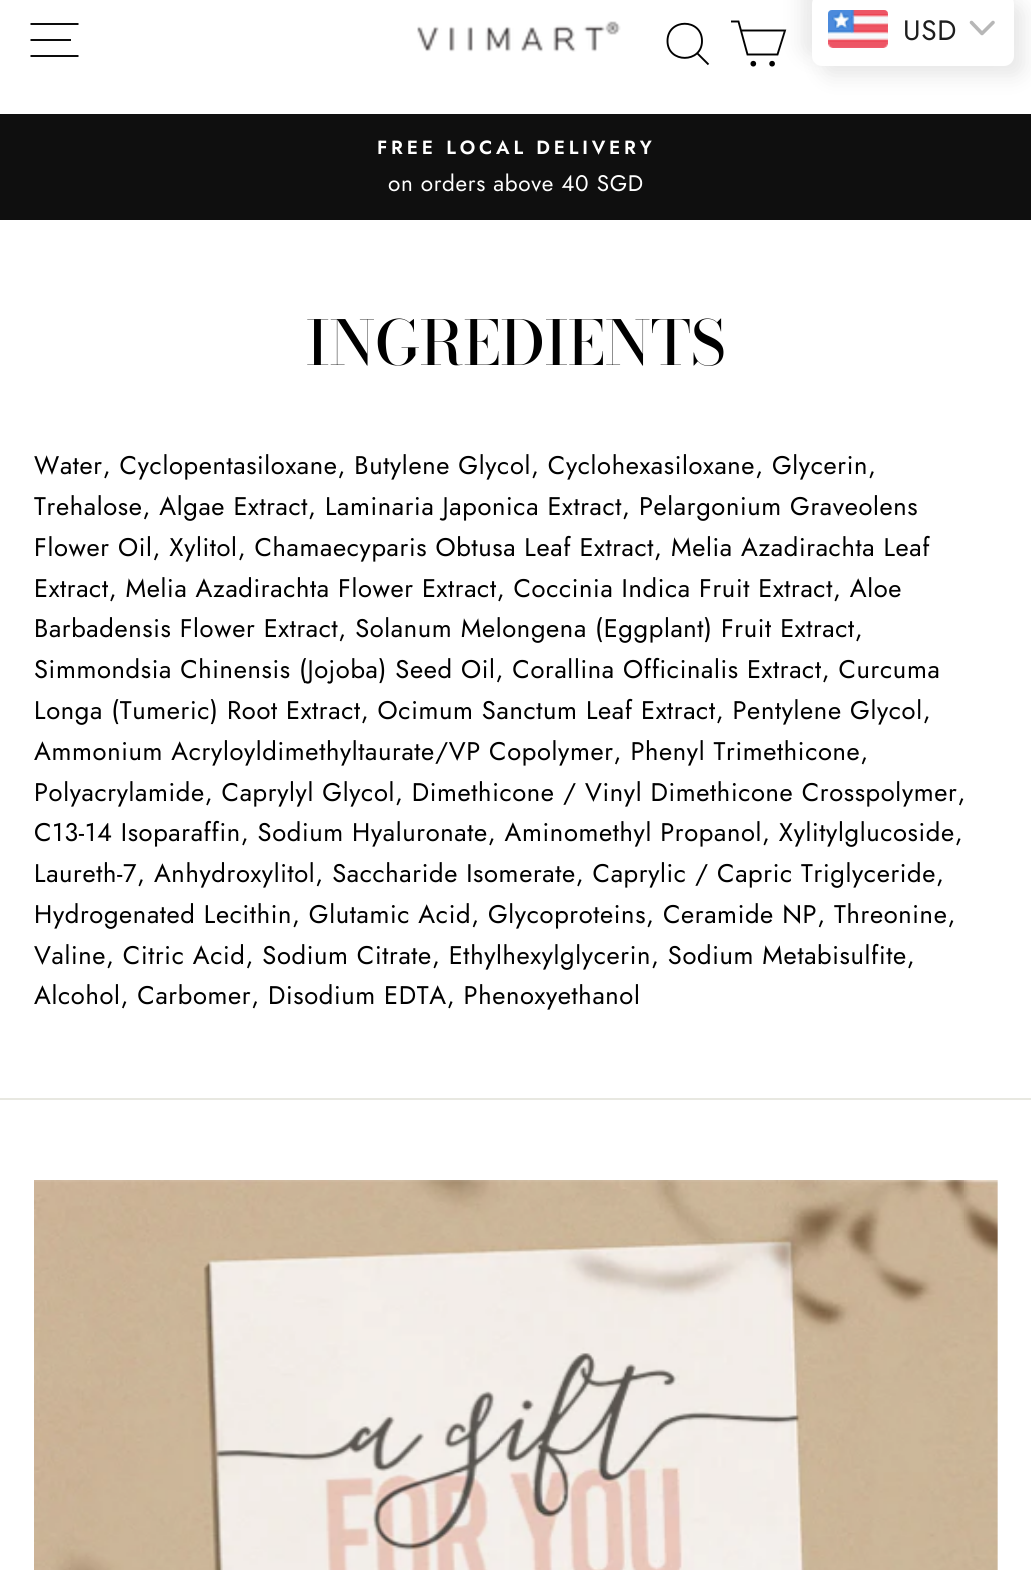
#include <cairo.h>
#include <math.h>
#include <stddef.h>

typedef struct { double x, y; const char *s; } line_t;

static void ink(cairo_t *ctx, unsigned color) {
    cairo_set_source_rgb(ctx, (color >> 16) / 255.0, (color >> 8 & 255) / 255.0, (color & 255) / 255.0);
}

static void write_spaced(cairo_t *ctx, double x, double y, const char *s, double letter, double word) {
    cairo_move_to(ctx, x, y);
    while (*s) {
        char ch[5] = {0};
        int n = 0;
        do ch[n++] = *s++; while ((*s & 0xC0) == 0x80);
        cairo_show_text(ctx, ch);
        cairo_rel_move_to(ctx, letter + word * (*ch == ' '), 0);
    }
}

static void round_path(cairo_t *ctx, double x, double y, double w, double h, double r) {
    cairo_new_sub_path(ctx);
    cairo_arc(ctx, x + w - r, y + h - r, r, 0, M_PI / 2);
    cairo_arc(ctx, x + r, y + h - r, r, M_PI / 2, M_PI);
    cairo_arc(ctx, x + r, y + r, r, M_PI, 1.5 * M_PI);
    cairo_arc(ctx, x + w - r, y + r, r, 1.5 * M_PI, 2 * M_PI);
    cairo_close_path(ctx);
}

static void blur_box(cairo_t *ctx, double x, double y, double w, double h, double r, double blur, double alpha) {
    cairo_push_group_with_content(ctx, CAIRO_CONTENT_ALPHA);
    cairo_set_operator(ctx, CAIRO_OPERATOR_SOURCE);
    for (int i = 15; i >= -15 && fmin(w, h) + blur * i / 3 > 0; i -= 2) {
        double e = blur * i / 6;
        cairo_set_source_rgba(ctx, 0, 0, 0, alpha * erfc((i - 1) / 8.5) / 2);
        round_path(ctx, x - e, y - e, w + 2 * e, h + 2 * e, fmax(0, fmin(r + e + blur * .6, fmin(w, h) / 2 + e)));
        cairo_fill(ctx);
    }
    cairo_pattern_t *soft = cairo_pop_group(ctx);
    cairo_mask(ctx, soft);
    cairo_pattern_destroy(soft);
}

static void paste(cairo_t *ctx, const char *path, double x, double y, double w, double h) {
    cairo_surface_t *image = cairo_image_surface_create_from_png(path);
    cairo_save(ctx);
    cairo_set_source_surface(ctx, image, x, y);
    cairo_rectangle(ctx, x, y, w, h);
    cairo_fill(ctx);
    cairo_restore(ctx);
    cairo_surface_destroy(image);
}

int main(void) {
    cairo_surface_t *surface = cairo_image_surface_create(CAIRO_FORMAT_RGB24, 1031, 1570);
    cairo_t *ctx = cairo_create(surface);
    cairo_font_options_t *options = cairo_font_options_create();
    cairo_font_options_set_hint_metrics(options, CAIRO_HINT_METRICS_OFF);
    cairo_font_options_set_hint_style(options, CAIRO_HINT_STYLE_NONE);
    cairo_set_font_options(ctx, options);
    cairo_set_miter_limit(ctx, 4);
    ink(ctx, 0xFFFFFF);
    cairo_paint(ctx);
    cairo_new_path(ctx);
    cairo_move_to(ctx, 30.5, 24);
    cairo_line_to(ctx, 78.5, 24);
    cairo_move_to(ctx, 30.5, 40);
    cairo_line_to(ctx, 71, 40);
    cairo_move_to(ctx, 30.5, 56);
    cairo_line_to(ctx, 78.5, 56);
    ink(ctx, 0x000000);
    cairo_set_line_width(ctx, 1.9);
    cairo_stroke(ctx);
    paste(ctx, "media/1.png", 417, 21, 204, 31);
    cairo_new_path(ctx);
    cairo_move_to(ctx, 702, 41);
    cairo_curve_to(ctx, 702, 63.5, 667.5, 63.5, 667.5, 41);
    cairo_curve_to(ctx, 667.5, 18, 702, 18, 702, 41);
    cairo_close_path(ctx);
    cairo_move_to(ctx, 708.5, 64.5);
    cairo_line_to(ctx, 697.5, 53.5);
    cairo_stroke(ctx);
    cairo_new_path(ctx);
    cairo_move_to(ctx, 741, 30.5);
    cairo_line_to(ctx, 785, 30.5);
    cairo_line_to(ctx, 777.5, 54.5);
    cairo_line_to(ctx, 747.5, 54.5);
    cairo_line_to(ctx, 738.5, 21.5);
    cairo_line_to(ctx, 731, 21.5);
    cairo_stroke(ctx);
    cairo_arc(ctx, 753.3, 63.7, 1.9, 0, 2 * M_PI);
    cairo_fill_preserve(ctx);
    cairo_stroke(ctx);
    cairo_arc(ctx, 772.1, 63.7, 1.9, 0, 2 * M_PI);
    cairo_fill_preserve(ctx);
    cairo_stroke(ctx);
    ink(ctx, 0xE8E8E8);
    blur_box(ctx, 802, -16, 202, 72, 10, 10, 1);
    blur_box(ctx, 822, 4, 202, 72, 10, 10, 1);
    ink(ctx, 0xFFFFFF);
    round_path(ctx, 812, -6, 202, 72, 10);
    cairo_fill(ctx);
    paste(ctx, "media/2.png", 828, 10, 60, 38);
    cairo_select_font_face(ctx, "Jost", CAIRO_FONT_SLANT_NORMAL, CAIRO_FONT_WEIGHT_NORMAL);
    cairo_set_font_size(ctx, 28);
    ink(ctx, 0x1E1E1E);
    write_spaced(ctx, 903, 40, "USD", 0.65, 0);
    cairo_new_path(ctx);
    cairo_move_to(ctx, 971.5, 22.5);
    cairo_line_to(ctx, 982, 33.5);
    cairo_line_to(ctx, 993, 22.5);
    ink(ctx, 0xB7B7B7);
    cairo_set_line_width(ctx, 3.6);
    cairo_set_line_cap(ctx, CAIRO_LINE_CAP_ROUND);
    cairo_set_line_join(ctx, CAIRO_LINE_JOIN_ROUND);
    cairo_stroke(ctx);
    ink(ctx, 0x0F0F0F);
    cairo_rectangle(ctx, 0, 114, 1031, 106);
    cairo_fill(ctx);
    cairo_select_font_face(ctx, "Jost SemiBold", CAIRO_FONT_SLANT_NORMAL, CAIRO_FONT_WEIGHT_NORMAL);
    cairo_set_font_size(ctx, 19.1);
    ink(ctx, 0xFFFFFF);
    write_spaced(ctx, 377, 154, "FREE LOCAL DELIVERY", 3.8, 0);
    cairo_select_font_face(ctx, "Jost", CAIRO_FONT_SLANT_NORMAL, CAIRO_FONT_WEIGHT_NORMAL);
    cairo_set_font_size(ctx, 22.5);
    write_spaced(ctx, 388, 191, "on orders above 40 SGD", 0.65, 0);
    cairo_select_font_face(ctx, "Bodoni Moda Medium", CAIRO_FONT_SLANT_NORMAL, CAIRO_FONT_WEIGHT_NORMAL);
    cairo_set_font_size(ctx, 61.25);
    ink(ctx, 0x000000);
    cairo_move_to(ctx, 306, 365);
    cairo_show_text(ctx, "INGREDIENTS");
    cairo_select_font_face(ctx, "Jost", CAIRO_FONT_SLANT_NORMAL, CAIRO_FONT_WEIGHT_NORMAL);
    cairo_set_font_size(ctx, 25.5);
    {
        static const line_t items[] = {
            {34, 474, "Water, Cyclopentasiloxane, Butylene Glycol, Cyclohexasiloxane, Glycerin,"},
            {34, 515, "Trehalose, Algae Extract, Laminaria Japonica Extract, Pelargonium Graveolens"},
            {34, 556, "Flower Oil, Xylitol, Chamaecyparis Obtusa Leaf Extract, Melia Azadirachta Leaf"},
            {34, 597, "Extract, Melia Azadirachta Flower Extract, Coccinia Indica Fruit Extract, Aloe"},
            {34, 637, "Barbadensis Flower Extract, Solanum Melongena (Eggplant) Fruit Extract,"},
            {34, 678, "Simmondsia Chinensis (Jojoba) Seed Oil, Corallina Officinalis Extract, Curcuma"},
            {34, 719, "Longa (Tumeric) Root Extract, Ocimum Sanctum Leaf Extract, Pentylene Glycol,"},
            {34, 760, "Ammonium Acryloyldimethyltaurate/VP Copolymer, Phenyl Trimethicone,"},
            {34, 801, "Polyacrylamide, Caprylyl Glycol, Dimethicone / Vinyl Dimethicone Crosspolymer,"},
            {34, 841, "C13-14 Isoparaffin, Sodium Hyaluronate, Aminomethyl Propanol, Xylitylglucoside,"},
            {34, 882, "Laureth-7, Anhydroxylitol, Saccharide Isomerate, Caprylic / Capric Triglyceride,"},
            {34, 923, "Hydrogenated Lecithin, Glutamic Acid, Glycoproteins, Ceramide NP, Threonine,"},
            {34, 964, "Valine, Citric Acid, Sodium Citrate, Ethylhexylglycerin, Sodium Metabisulfite,"},
            {34, 1004, "Alcohol, Carbomer, Disodium EDTA, Phenoxyethanol"},
        };
        for (size_t i = 0; i < sizeof items / sizeof *items; i++) {
            write_spaced(ctx, items[i].x, items[i].y, items[i].s, 0.65, 0);
        }
    }
    ink(ctx, 0xE8E8E1);
    cairo_rectangle(ctx, 0, 1098, 1031, 2);
    cairo_fill(ctx);
    paste(ctx, "media/3.png", 34, 1180, 964, 390);
    cairo_surface_write_to_png(surface, "image.png");
    cairo_font_options_destroy(options);
    cairo_destroy(ctx);
    cairo_surface_destroy(surface);
    return 0;
}
